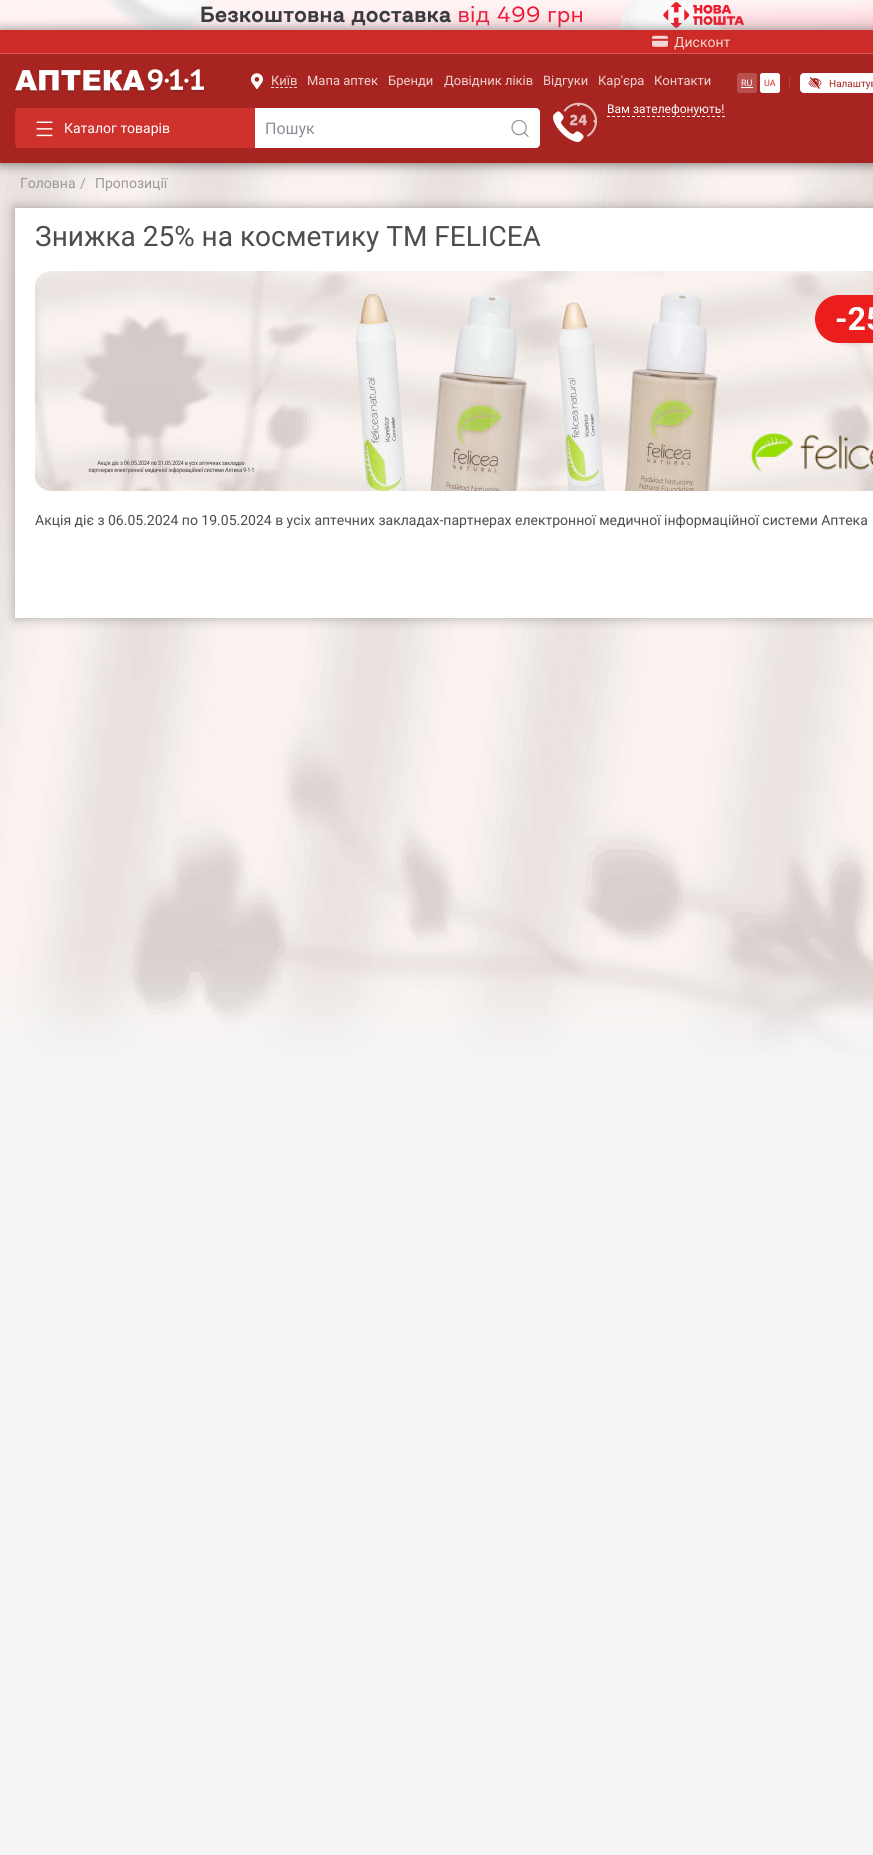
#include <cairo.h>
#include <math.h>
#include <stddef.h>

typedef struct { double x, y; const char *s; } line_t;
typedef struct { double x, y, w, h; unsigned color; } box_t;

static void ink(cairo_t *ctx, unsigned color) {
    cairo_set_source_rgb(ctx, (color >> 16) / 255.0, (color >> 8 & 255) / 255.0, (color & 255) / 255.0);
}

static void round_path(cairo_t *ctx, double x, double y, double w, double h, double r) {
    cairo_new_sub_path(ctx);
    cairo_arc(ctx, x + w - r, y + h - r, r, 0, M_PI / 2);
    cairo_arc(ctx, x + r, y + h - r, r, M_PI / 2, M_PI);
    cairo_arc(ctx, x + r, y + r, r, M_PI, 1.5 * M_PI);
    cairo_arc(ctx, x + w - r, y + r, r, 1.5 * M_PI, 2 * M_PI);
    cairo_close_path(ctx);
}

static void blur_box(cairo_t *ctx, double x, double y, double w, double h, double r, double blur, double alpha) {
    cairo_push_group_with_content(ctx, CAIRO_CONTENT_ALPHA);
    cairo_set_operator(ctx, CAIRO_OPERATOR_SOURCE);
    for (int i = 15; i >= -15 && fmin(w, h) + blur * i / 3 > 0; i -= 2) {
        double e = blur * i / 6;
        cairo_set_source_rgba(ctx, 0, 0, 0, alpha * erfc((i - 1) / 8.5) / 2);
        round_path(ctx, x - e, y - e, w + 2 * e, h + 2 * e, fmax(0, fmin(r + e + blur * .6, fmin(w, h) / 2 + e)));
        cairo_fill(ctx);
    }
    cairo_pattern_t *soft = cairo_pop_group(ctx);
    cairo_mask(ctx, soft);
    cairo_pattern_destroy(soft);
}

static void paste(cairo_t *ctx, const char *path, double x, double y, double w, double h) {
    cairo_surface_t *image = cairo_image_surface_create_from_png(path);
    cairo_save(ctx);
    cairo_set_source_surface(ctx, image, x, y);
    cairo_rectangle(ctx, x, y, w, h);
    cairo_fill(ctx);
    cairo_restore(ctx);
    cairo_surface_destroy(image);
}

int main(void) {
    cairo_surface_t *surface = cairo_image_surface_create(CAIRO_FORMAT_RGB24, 873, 1855);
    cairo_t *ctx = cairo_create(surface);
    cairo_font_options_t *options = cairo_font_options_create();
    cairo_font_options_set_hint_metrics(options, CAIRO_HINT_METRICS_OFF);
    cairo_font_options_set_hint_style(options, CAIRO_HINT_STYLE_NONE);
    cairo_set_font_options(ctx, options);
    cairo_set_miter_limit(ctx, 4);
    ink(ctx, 0xF5F5F5);
    cairo_paint(ctx);
    paste(ctx, "media/1.png", 0, 163, 873, 892);
    paste(ctx, "media/2.png", 0, 0, 873, 30);
    ink(ctx, 0x717171);
    blur_box(ctx, 0, 31, 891, 133, 0, 6, 1);
    {
        static const box_t items[] = {
            {0, 54, 873, 109, 0xA82420},
            {0, 30, 873, 23, 0xCC2B27},
            {0, 53, 873, 1, 0xD65552},
        };
        for (size_t i = 0; i < sizeof items / sizeof *items; i++) {
            ink(ctx, items[i].color);
            cairo_rectangle(ctx, items[i].x, items[i].y, items[i].w, items[i].h);
            cairo_fill(ctx);
        }
    }
    paste(ctx, "media/3.png", 652, 35, 16, 12);
    cairo_select_font_face(ctx, "Roboto", CAIRO_FONT_SLANT_NORMAL, CAIRO_FONT_WEIGHT_NORMAL);
    cairo_set_font_size(ctx, 14);
    ink(ctx, 0xF5D5D4);
    cairo_move_to(ctx, 674, 47);
    cairo_show_text(ctx, "Дисконт");
    paste(ctx, "media/4.png", 15, 69, 189, 24);
    paste(ctx, "media/5.png", 250, 73, 13, 17);
    cairo_new_path(ctx);
    cairo_move_to(ctx, 271, 87.5);
    cairo_line_to(ctx, 297, 87.5);
    ink(ctx, 0xEED3D2);
    cairo_set_line_width(ctx, 1);
    cairo_set_dash(ctx, (double[]){3, 1.6}, 2, 0);
    cairo_stroke(ctx);
    cairo_set_font_size(ctx, 13);
    {
        static const line_t items[] = {
            {271, 85, "Київ"},
            {307, 85, "Мапа аптек"},
            {388, 85, "Бренди"},
            {444, 85, "Довідник ліків"},
            {543, 85, "Відгуки"},
            {598, 85, "Кар'єра"},
            {654, 85, "Контакти"},
        };
        for (size_t i = 0; i < sizeof items / sizeof *items; i++) {
            cairo_move_to(ctx, items[i].x, items[i].y);
            cairo_show_text(ctx, items[i].s);
        }
    }
    ink(ctx, 0xB9504D);
    round_path(ctx, 737, 73, 20, 20, 2.5);
    cairo_fill(ctx);
    cairo_set_font_size(ctx, 9);
    ink(ctx, 0xFFFFFF);
    cairo_move_to(ctx, 741, 86);
    cairo_show_text(ctx, "RU");
    cairo_rectangle(ctx, 741, 87, 12, 1);
    cairo_fill(ctx);
    round_path(ctx, 760, 73, 20, 20, 2.5);
    cairo_fill(ctx);
    ink(ctx, 0xCF312C);
    cairo_move_to(ctx, 764, 86);
    cairo_show_text(ctx, "UA");
    ink(ctx, 0xC23A35);
    cairo_rectangle(ctx, 789, 77, 1, 12);
    cairo_fill(ctx);
    ink(ctx, 0xFFFFFF);
    round_path(ctx, 800.5, 73.5, 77, 19, 3.5);
    cairo_fill_preserve(ctx);
    cairo_set_dash(ctx, NULL, 0, 0);
    cairo_stroke(ctx);
    paste(ctx, "media/6.png", 808, 77, 14, 12);
    cairo_set_font_size(ctx, 10);
    ink(ctx, 0xA82420);
    cairo_move_to(ctx, 829, 87);
    cairo_show_text(ctx, "Налаштув");
    paste(ctx, "media/8.png", 553, 111, 31, 31);
    paste(ctx, "media/7.png", 563, 102, 35, 35);
    cairo_set_font_size(ctx, 12);
    ink(ctx, 0xFFFFFF);
    cairo_move_to(ctx, 607, 113);
    cairo_show_text(ctx, "Вам зателефонують!");
    cairo_new_path(ctx);
    cairo_move_to(ctx, 607, 116.5);
    cairo_line_to(ctx, 725, 116.5);
    cairo_set_dash(ctx, (double[]){3, 2}, 2, 0);
    cairo_stroke(ctx);
    ink(ctx, 0xCF312C);
    cairo_new_path(ctx);
    cairo_move_to(ctx, 19, 108);
    cairo_line_to(ctx, 269, 108);
    cairo_line_to(ctx, 269, 148);
    cairo_line_to(ctx, 19, 148);
    cairo_curve_to(ctx, 17, 148, 15, 146, 15, 144);
    cairo_line_to(ctx, 15, 112);
    cairo_curve_to(ctx, 15, 110, 17, 108, 19, 108);
    cairo_close_path(ctx);
    cairo_fill(ctx);
    paste(ctx, "media/9.png", 36, 121, 17, 16);
    cairo_set_font_size(ctx, 14);
    ink(ctx, 0xFFFFFF);
    cairo_move_to(ctx, 64, 133);
    cairo_show_text(ctx, "Каталог товарів");
    cairo_new_path(ctx);
    cairo_move_to(ctx, 255, 108);
    cairo_line_to(ctx, 536, 108);
    cairo_curve_to(ctx, 538, 108, 540, 110, 540, 112);
    cairo_line_to(ctx, 540, 144);
    cairo_curve_to(ctx, 540, 146, 538, 148, 536, 148);
    cairo_line_to(ctx, 255, 148);
    cairo_close_path(ctx);
    cairo_fill(ctx);
    cairo_set_font_size(ctx, 16);
    ink(ctx, 0x8B8E98);
    cairo_move_to(ctx, 265, 134);
    cairo_show_text(ctx, "Пошук");
    paste(ctx, "media/10.png", 511, 119, 18, 18);
    cairo_set_font_size(ctx, 14);
    ink(ctx, 0x999999);
    {
        static const line_t items[] = {
            {20, 188, "Головна"},
            {80, 188, "/"},
            {95, 188, "Пропозиції"},
        };
        for (size_t i = 0; i < sizeof items / sizeof *items; i++) {
            cairo_move_to(ctx, items[i].x, items[i].y);
            cairo_show_text(ctx, items[i].s);
        }
    }
    ink(ctx, 0x000000);
    blur_box(ctx, 15, 208, 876, 410, 0, 6, 0.3);
    ink(ctx, 0xFFFFFF);
    cairo_rectangle(ctx, 15, 208, 858, 410);
    cairo_fill(ctx);
    cairo_set_font_size(ctx, 28);
    ink(ctx, 0x4D4D4D);
    cairo_move_to(ctx, 35, 246);
    cairo_show_text(ctx, "Знижка 25% на косметику ТМ FELICEA");
    paste(ctx, "media/11.png", 35, 271, 838, 220);
    cairo_set_font_size(ctx, 14);
    cairo_move_to(ctx, 35, 525);
    cairo_show_text(ctx, "Акція діє з 06.05.2024 по 19.05.2024 в усіх аптечних закладах-партнерах електронної медичної інформаційної системи Аптека");
    cairo_surface_write_to_png(surface, "image.png");
    cairo_font_options_destroy(options);
    cairo_destroy(ctx);
    cairo_surface_destroy(surface);
    return 0;
}
